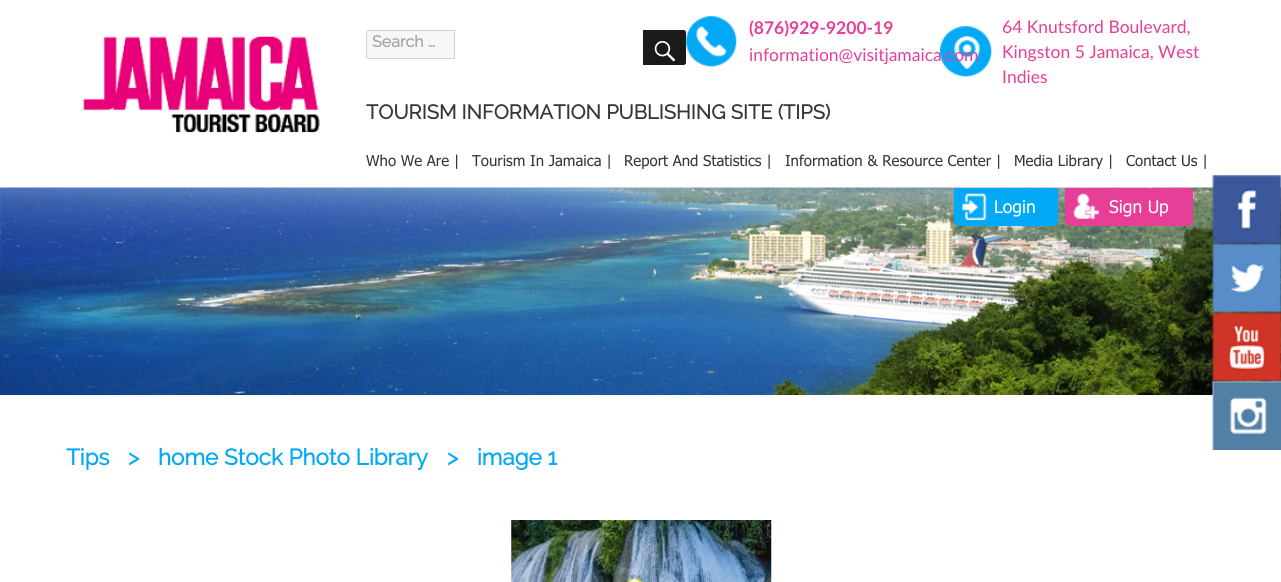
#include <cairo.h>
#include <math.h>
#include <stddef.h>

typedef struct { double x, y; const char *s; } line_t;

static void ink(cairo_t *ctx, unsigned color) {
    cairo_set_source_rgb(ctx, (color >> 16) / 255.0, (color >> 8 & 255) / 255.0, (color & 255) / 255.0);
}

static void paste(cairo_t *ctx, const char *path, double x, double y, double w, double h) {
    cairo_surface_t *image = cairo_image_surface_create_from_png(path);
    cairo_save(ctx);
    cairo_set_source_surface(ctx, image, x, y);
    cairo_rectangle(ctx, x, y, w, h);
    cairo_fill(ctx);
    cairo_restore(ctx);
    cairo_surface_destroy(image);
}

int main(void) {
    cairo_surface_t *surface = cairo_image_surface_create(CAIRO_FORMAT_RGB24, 1281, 582);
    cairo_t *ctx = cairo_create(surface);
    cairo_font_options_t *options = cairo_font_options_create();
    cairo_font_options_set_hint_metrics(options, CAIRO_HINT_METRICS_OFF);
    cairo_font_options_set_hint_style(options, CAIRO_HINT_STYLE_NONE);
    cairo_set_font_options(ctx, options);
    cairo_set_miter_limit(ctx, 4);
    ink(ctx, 0xFFFFFF);
    cairo_paint(ctx);
    paste(ctx, "media/1.png", 82, 36, 238, 97);
    ink(ctx, 0xF7F7F7);
    cairo_new_path(ctx);
    cairo_move_to(ctx, 368.5, 30.5);
    cairo_line_to(ctx, 454.5, 30.5);
    cairo_line_to(ctx, 454.5, 58.5);
    cairo_line_to(ctx, 368.5, 58.5);
    cairo_curve_to(ctx, 367.5, 58.5, 366.5, 57.5, 366.5, 56.5);
    cairo_line_to(ctx, 366.5, 32.5);
    cairo_curve_to(ctx, 366.5, 31.5, 367.5, 30.5, 368.5, 30.5);
    cairo_close_path(ctx);
    cairo_fill_preserve(ctx);
    ink(ctx, 0xD1D1D1);
    cairo_set_line_width(ctx, 1);
    cairo_stroke(ctx);
    cairo_select_font_face(ctx, "Raleway", CAIRO_FONT_SLANT_NORMAL, CAIRO_FONT_WEIGHT_BOLD);
    cairo_set_font_size(ctx, 16);
    ink(ctx, 0xA4A4A4);
    cairo_move_to(ctx, 372, 47);
    cairo_show_text(ctx, "Search …");
    ink(ctx, 0x1A1A1A);
    cairo_new_path(ctx);
    cairo_move_to(ctx, 643, 30);
    cairo_line_to(ctx, 683.5, 30);
    cairo_curve_to(ctx, 685, 30, 686, 31, 686, 32.5);
    cairo_line_to(ctx, 686, 62.5);
    cairo_curve_to(ctx, 686, 64, 685, 65, 683.5, 65);
    cairo_line_to(ctx, 643, 65);
    cairo_close_path(ctx);
    cairo_fill(ctx);
    paste(ctx, "media/2.png", 654, 40, 22, 22);
    paste(ctx, "media/3.png", 686, 16, 51, 51);
    cairo_select_font_face(ctx, "Lato", CAIRO_FONT_SLANT_NORMAL, CAIRO_FONT_WEIGHT_BOLD);
    cairo_set_font_size(ctx, 17.5);
    ink(ctx, 0xE73E97);
    cairo_move_to(ctx, 749, 34);
    cairo_show_text(ctx, "(876)929-9200-19");
    paste(ctx, "media/4.png", 940, 26, 52, 51);
    cairo_select_font_face(ctx, "Lato", CAIRO_FONT_SLANT_NORMAL, CAIRO_FONT_WEIGHT_NORMAL);
    {
        static const line_t items[] = {
            {749, 61, "information@visitjamaica.com"},
            {1002, 33, "64 Knutsford Boulevard,"},
            {1002, 58, "Kingston 5 Jamaica, West"},
            {1002, 83, "Indies"},
        };
        for (size_t i = 0; i < sizeof items / sizeof *items; i++) {
            cairo_move_to(ctx, items[i].x, items[i].y);
            cairo_show_text(ctx, items[i].s);
        }
    }
    cairo_select_font_face(ctx, "Raleway", CAIRO_FONT_SLANT_NORMAL, CAIRO_FONT_WEIGHT_BOLD);
    cairo_set_font_size(ctx, 20);
    ink(ctx, 0x363636);
    cairo_move_to(ctx, 366, 119);
    cairo_show_text(ctx, "TOURISM INFORMATION PUBLISHING SITE (TIPS)");
    cairo_select_font_face(ctx, "Tahoma", CAIRO_FONT_SLANT_NORMAL, CAIRO_FONT_WEIGHT_NORMAL);
    cairo_set_font_size(ctx, 15);
    {
        static const line_t items[] = {
            {366, 166, "Who We Are |"},
            {472, 166, "Tourism In Jamaica |"},
            {624, 166, "Report And Statistics |"},
            {785, 166, "Information & Resource Center |"},
            {1014, 166, "Media Library |"},
            {1126, 166, "Contact Us |"},
        };
        for (size_t i = 0; i < sizeof items / sizeof *items; i++) {
            cairo_move_to(ctx, items[i].x, items[i].y);
            cairo_show_text(ctx, items[i].s);
        }
    }
    paste(ctx, "media/5.png", 0, 187, 1281, 208);
    ink(ctx, 0x03A9F4);
    cairo_new_path(ctx);
    cairo_move_to(ctx, 954, 188);
    cairo_line_to(ctx, 1058, 188);
    cairo_line_to(ctx, 1058, 220);
    cairo_curve_to(ctx, 1058, 223.5, 1055.5, 226, 1052, 226);
    cairo_line_to(ctx, 960, 226);
    cairo_curve_to(ctx, 956.5, 226, 954, 223.5, 954, 220);
    cairo_close_path(ctx);
    cairo_fill(ctx);
    paste(ctx, "media/6.png", 962, 193, 25, 27);
    cairo_set_font_size(ctx, 17.5);
    ink(ctx, 0xFFFFFF);
    cairo_move_to(ctx, 994, 213);
    cairo_show_text(ctx, "Login");
    ink(ctx, 0xE73E97);
    cairo_new_path(ctx);
    cairo_move_to(ctx, 1065, 188);
    cairo_line_to(ctx, 1193, 188);
    cairo_line_to(ctx, 1193, 220);
    cairo_curve_to(ctx, 1193, 223.5, 1190.5, 226, 1187, 226);
    cairo_line_to(ctx, 1071, 226);
    cairo_curve_to(ctx, 1067.5, 226, 1065, 223.5, 1065, 220);
    cairo_close_path(ctx);
    cairo_fill(ctx);
    paste(ctx, "media/7.png", 1073, 193, 26, 26);
    ink(ctx, 0xFFFFFF);
    cairo_move_to(ctx, 1109, 213);
    cairo_show_text(ctx, "Sign Up");
    paste(ctx, "media/8.png", 1212, 175, 69, 69);
    paste(ctx, "media/9.png", 1212, 243, 69, 70);
    paste(ctx, "media/10.png", 1212, 312, 69, 70);
    paste(ctx, "media/11.png", 1212, 381, 69, 69);
    cairo_select_font_face(ctx, "Raleway", CAIRO_FONT_SLANT_NORMAL, CAIRO_FONT_WEIGHT_BOLD);
    cairo_set_font_size(ctx, 22.5);
    ink(ctx, 0x03A9F4);
    {
        static const line_t items[] = {
            {66, 465, "Tips"},
            {128, 465, ">"},
            {158, 465, "home Stock Photo Library"},
            {447, 465, ">"},
            {477, 465, "image 1"},
        };
        for (size_t i = 0; i < sizeof items / sizeof *items; i++) {
            cairo_move_to(ctx, items[i].x, items[i].y);
            cairo_show_text(ctx, items[i].s);
        }
    }
    paste(ctx, "media/12.png", 511, 520, 261, 62);
    cairo_surface_write_to_png(surface, "image.png");
    cairo_font_options_destroy(options);
    cairo_destroy(ctx);
    cairo_surface_destroy(surface);
    return 0;
}
